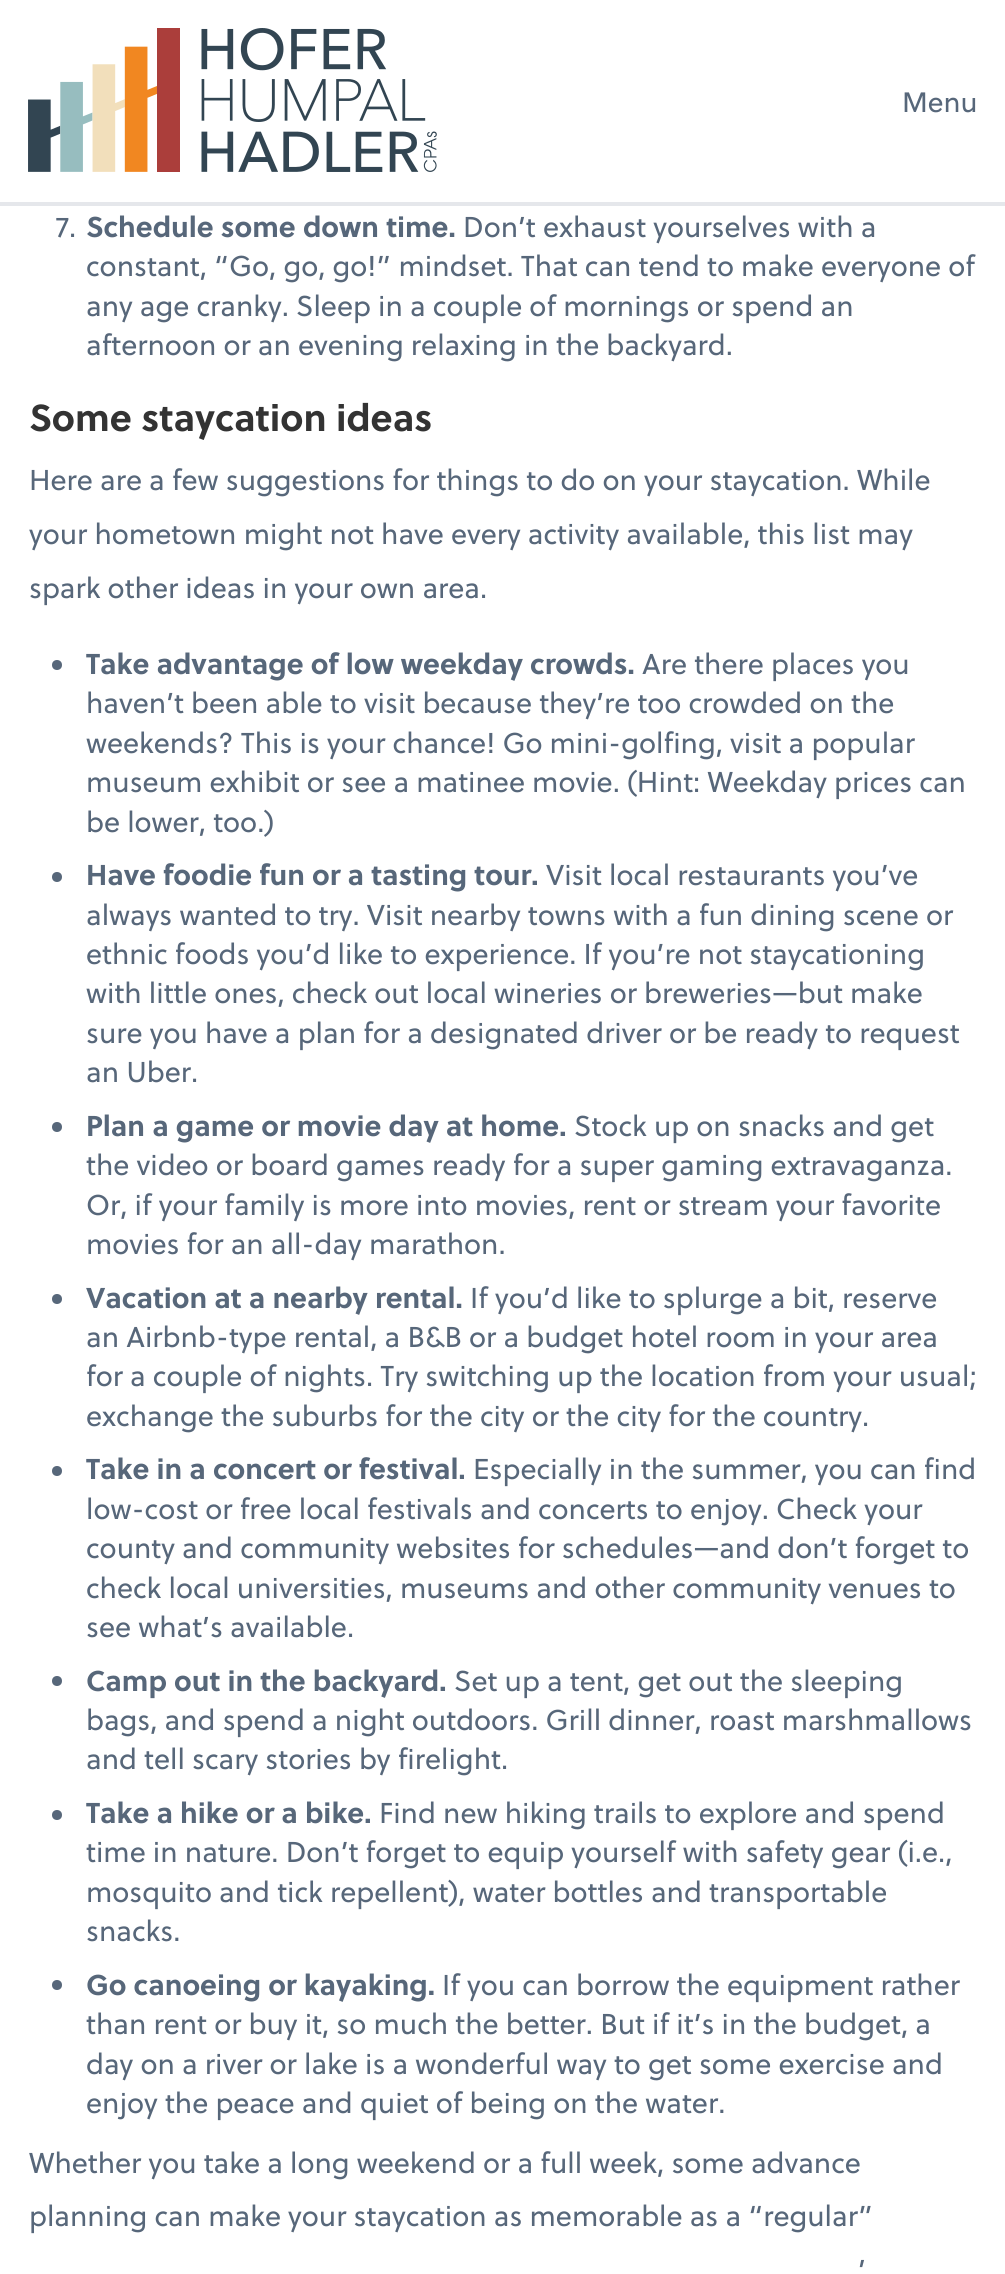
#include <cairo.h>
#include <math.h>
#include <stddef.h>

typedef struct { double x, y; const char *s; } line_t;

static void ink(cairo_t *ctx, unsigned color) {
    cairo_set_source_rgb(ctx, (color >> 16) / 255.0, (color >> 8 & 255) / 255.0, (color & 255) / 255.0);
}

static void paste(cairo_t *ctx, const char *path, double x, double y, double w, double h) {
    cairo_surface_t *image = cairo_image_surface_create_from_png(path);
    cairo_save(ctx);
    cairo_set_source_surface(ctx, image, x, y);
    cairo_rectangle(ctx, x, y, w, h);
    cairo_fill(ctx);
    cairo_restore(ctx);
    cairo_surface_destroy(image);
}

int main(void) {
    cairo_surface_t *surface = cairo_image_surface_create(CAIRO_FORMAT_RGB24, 1005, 2274);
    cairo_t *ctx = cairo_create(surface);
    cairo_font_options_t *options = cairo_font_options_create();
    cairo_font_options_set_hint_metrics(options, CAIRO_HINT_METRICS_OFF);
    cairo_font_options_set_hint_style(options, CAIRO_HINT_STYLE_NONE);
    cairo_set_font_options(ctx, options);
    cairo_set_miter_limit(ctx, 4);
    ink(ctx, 0xFFFFFF);
    cairo_paint(ctx);
    ink(ctx, 0xE5E7EB);
    cairo_rectangle(ctx, 0, 202, 1005, 4);
    cairo_fill(ctx);
    paste(ctx, "media/1.png", 28, 28, 409, 144);
    cairo_select_font_face(ctx, "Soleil", CAIRO_FONT_SLANT_NORMAL, CAIRO_FONT_WEIGHT_NORMAL);
    cairo_set_font_size(ctx, 28);
    ink(ctx, 0x57677A);
    cairo_move_to(ctx, 902, 112);
    cairo_show_text(ctx, "Menu");
    cairo_set_font_size(ctx, 28.65);
    cairo_move_to(ctx, 56, 237);
    cairo_show_text(ctx, "7.");
    cairo_select_font_face(ctx, "Soleil", CAIRO_FONT_SLANT_NORMAL, CAIRO_FONT_WEIGHT_BOLD);
    cairo_move_to(ctx, 86, 237);
    cairo_show_text(ctx, "Schedule some down time.");
    cairo_select_font_face(ctx, "Soleil", CAIRO_FONT_SLANT_NORMAL, CAIRO_FONT_WEIGHT_NORMAL);
    {
        static const line_t items[] = {
            {463, 237, "Don’t exhaust yourselves with a"},
            {86, 276, "constant, “Go, go, go!” mindset. That can tend to make everyone of"},
            {86, 316, "any age cranky. Sleep in a couple of mornings or spend an"},
            {86, 355, "afternoon or an evening relaxing in the backyard."},
        };
        for (size_t i = 0; i < sizeof items / sizeof *items; i++) {
            cairo_move_to(ctx, items[i].x, items[i].y);
            cairo_show_text(ctx, items[i].s);
        }
    }
    cairo_select_font_face(ctx, "Soleil", CAIRO_FONT_SLANT_NORMAL, CAIRO_FONT_WEIGHT_BOLD);
    cairo_set_font_size(ctx, 37.5);
    ink(ctx, 0x333333);
    cairo_move_to(ctx, 29, 431);
    cairo_show_text(ctx, "Some staycation ideas");
    cairo_select_font_face(ctx, "Soleil", CAIRO_FONT_SLANT_NORMAL, CAIRO_FONT_WEIGHT_NORMAL);
    cairo_set_font_size(ctx, 28.65);
    ink(ctx, 0x57677A);
    {
        static const line_t items[] = {
            {29, 490, "Here are a few suggestions for things to do on your staycation. While"},
            {29, 544, "your hometown might not have every activity available, this list may"},
            {29, 598, "spark other ideas in your own area."},
        };
        for (size_t i = 0; i < sizeof items / sizeof *items; i++) {
            cairo_move_to(ctx, items[i].x, items[i].y);
            cairo_show_text(ctx, items[i].s);
        }
    }
    cairo_new_path(ctx);
    cairo_arc(ctx, 57, 665, 5, 0, 2 * M_PI);
    cairo_fill(ctx);
    cairo_select_font_face(ctx, "Soleil", CAIRO_FONT_SLANT_NORMAL, CAIRO_FONT_WEIGHT_BOLD);
    cairo_move_to(ctx, 86, 674);
    cairo_show_text(ctx, "Take advantage of low weekday crowds.");
    cairo_select_font_face(ctx, "Soleil", CAIRO_FONT_SLANT_NORMAL, CAIRO_FONT_WEIGHT_NORMAL);
    {
        static const line_t items[] = {
            {642, 674, "Are there places you"},
            {86, 713, "haven’t been able to visit because they’re too crowded on the"},
            {86, 753, "weekends? This is your chance! Go mini-golfing, visit a popular"},
            {86, 792, "museum exhibit or see a matinee movie. (Hint: Weekday prices can"},
            {86, 832, "be lower, too.)"},
        };
        for (size_t i = 0; i < sizeof items / sizeof *items; i++) {
            cairo_move_to(ctx, items[i].x, items[i].y);
            cairo_show_text(ctx, items[i].s);
        }
    }
    cairo_new_path(ctx);
    cairo_arc(ctx, 57, 877, 5, 0, 2 * M_PI);
    cairo_fill(ctx);
    cairo_select_font_face(ctx, "Soleil", CAIRO_FONT_SLANT_NORMAL, CAIRO_FONT_WEIGHT_BOLD);
    cairo_move_to(ctx, 86, 885);
    cairo_show_text(ctx, "Have foodie fun or a tasting tour.");
    cairo_select_font_face(ctx, "Soleil", CAIRO_FONT_SLANT_NORMAL, CAIRO_FONT_WEIGHT_NORMAL);
    {
        static const line_t items[] = {
            {546, 885, "Visit local restaurants you’ve"},
            {86, 925, "always wanted to try. Visit nearby towns with a fun dining scene or"},
            {86, 964, "ethnic foods you’d like to experience. If you’re not staycationing"},
            {86, 1003, "with little ones, check out local wineries or breweries—but make"},
            {86, 1043, "sure you have a plan for a designated driver or be ready to request"},
            {86, 1082, "an Uber."},
        };
        for (size_t i = 0; i < sizeof items / sizeof *items; i++) {
            cairo_move_to(ctx, items[i].x, items[i].y);
            cairo_show_text(ctx, items[i].s);
        }
    }
    cairo_new_path(ctx);
    cairo_arc(ctx, 57, 1127, 5, 0, 2 * M_PI);
    cairo_fill(ctx);
    cairo_select_font_face(ctx, "Soleil", CAIRO_FONT_SLANT_NORMAL, CAIRO_FONT_WEIGHT_BOLD);
    cairo_move_to(ctx, 86, 1136);
    cairo_show_text(ctx, "Plan a game or movie day at home.");
    cairo_select_font_face(ctx, "Soleil", CAIRO_FONT_SLANT_NORMAL, CAIRO_FONT_WEIGHT_NORMAL);
    {
        static const line_t items[] = {
            {574, 1136, "Stock up on snacks and get"},
            {86, 1175, "the video or board games ready for a super gaming extravaganza."},
            {86, 1215, "Or, if your family is more into movies, rent or stream your favorite"},
            {86, 1254, "movies for an all-day marathon."},
        };
        for (size_t i = 0; i < sizeof items / sizeof *items; i++) {
            cairo_move_to(ctx, items[i].x, items[i].y);
            cairo_show_text(ctx, items[i].s);
        }
    }
    cairo_new_path(ctx);
    cairo_arc(ctx, 57, 1299, 5, 0, 2 * M_PI);
    cairo_fill(ctx);
    cairo_select_font_face(ctx, "Soleil", CAIRO_FONT_SLANT_NORMAL, CAIRO_FONT_WEIGHT_BOLD);
    cairo_move_to(ctx, 86, 1308);
    cairo_show_text(ctx, "Vacation at a nearby rental.");
    cairo_select_font_face(ctx, "Soleil", CAIRO_FONT_SLANT_NORMAL, CAIRO_FONT_WEIGHT_NORMAL);
    {
        static const line_t items[] = {
            {470, 1308, "If you’d like to splurge a bit, reserve"},
            {86, 1347, "an Airbnb-type rental, a B&B or a budget hotel room in your area"},
            {86, 1386, "for a couple of nights. Try switching up the location from your usual;"},
            {86, 1426, "exchange the suburbs for the city or the city for the country."},
        };
        for (size_t i = 0; i < sizeof items / sizeof *items; i++) {
            cairo_move_to(ctx, items[i].x, items[i].y);
            cairo_show_text(ctx, items[i].s);
        }
    }
    cairo_new_path(ctx);
    cairo_arc(ctx, 57, 1471, 5, 0, 2 * M_PI);
    cairo_fill(ctx);
    cairo_select_font_face(ctx, "Soleil", CAIRO_FONT_SLANT_NORMAL, CAIRO_FONT_WEIGHT_BOLD);
    cairo_move_to(ctx, 86, 1479);
    cairo_show_text(ctx, "Take in a concert or festival.");
    cairo_select_font_face(ctx, "Soleil", CAIRO_FONT_SLANT_NORMAL, CAIRO_FONT_WEIGHT_NORMAL);
    {
        static const line_t items[] = {
            {473, 1479, "Especially in the summer, you can find"},
            {86, 1519, "low-cost or free local festivals and concerts to enjoy. Check your"},
            {86, 1558, "county and community websites for schedules—and don’t forget to"},
            {86, 1598, "check local universities, museums and other community venues to"},
            {86, 1637, "see what’s available."},
        };
        for (size_t i = 0; i < sizeof items / sizeof *items; i++) {
            cairo_move_to(ctx, items[i].x, items[i].y);
            cairo_show_text(ctx, items[i].s);
        }
    }
    cairo_new_path(ctx);
    cairo_arc(ctx, 57, 1681, 5, 0, 2 * M_PI);
    cairo_fill(ctx);
    cairo_select_font_face(ctx, "Soleil", CAIRO_FONT_SLANT_NORMAL, CAIRO_FONT_WEIGHT_BOLD);
    cairo_move_to(ctx, 86, 1691);
    cairo_show_text(ctx, "Camp out in the backyard.");
    cairo_select_font_face(ctx, "Soleil", CAIRO_FONT_SLANT_NORMAL, CAIRO_FONT_WEIGHT_NORMAL);
    {
        static const line_t items[] = {
            {454, 1691, "Set up a tent, get out the sleeping"},
            {86, 1730, "bags, and spend a night outdoors. Grill dinner, roast marshmallows"},
            {86, 1769, "and tell scary stories by firelight."},
        };
        for (size_t i = 0; i < sizeof items / sizeof *items; i++) {
            cairo_move_to(ctx, items[i].x, items[i].y);
            cairo_show_text(ctx, items[i].s);
        }
    }
    cairo_new_path(ctx);
    cairo_arc(ctx, 57, 1815, 5, 0, 2 * M_PI);
    cairo_fill(ctx);
    cairo_select_font_face(ctx, "Soleil", CAIRO_FONT_SLANT_NORMAL, CAIRO_FONT_WEIGHT_BOLD);
    cairo_move_to(ctx, 86, 1823);
    cairo_show_text(ctx, "Take a hike or a bike.");
    cairo_select_font_face(ctx, "Soleil", CAIRO_FONT_SLANT_NORMAL, CAIRO_FONT_WEIGHT_NORMAL);
    {
        static const line_t items[] = {
            {379, 1823, "Find new hiking trails to explore and spend"},
            {86, 1862, "time in nature. Don’t forget to equip yourself with safety gear (i.e.,"},
            {86, 1902, "mosquito and tick repellent), water bottles and transportable"},
            {86, 1941, "snacks."},
        };
        for (size_t i = 0; i < sizeof items / sizeof *items; i++) {
            cairo_move_to(ctx, items[i].x, items[i].y);
            cairo_show_text(ctx, items[i].s);
        }
    }
    cairo_new_path(ctx);
    cairo_arc(ctx, 57, 1985, 5, 0, 2 * M_PI);
    cairo_fill(ctx);
    cairo_select_font_face(ctx, "Soleil", CAIRO_FONT_SLANT_NORMAL, CAIRO_FONT_WEIGHT_BOLD);
    cairo_move_to(ctx, 86, 1995);
    cairo_show_text(ctx, "Go canoeing or kayaking.");
    cairo_select_font_face(ctx, "Soleil", CAIRO_FONT_SLANT_NORMAL, CAIRO_FONT_WEIGHT_NORMAL);
    {
        static const line_t items[] = {
            {442, 1995, "If you can borrow the equipment rather"},
            {86, 2034, "than rent or buy it, so much the better. But if it’s in the budget, a"},
            {86, 2074, "day on a river or lake is a wonderful way to get some exercise and"},
            {86, 2113, "enjoy the peace and quiet of being on the water."},
            {29, 2173, "Whether you take a long weekend or a full week, some advance"},
            {29, 2226, "planning can make your staycation as memorable as a “regular”"},
            {858, 2280, "’"},
        };
        for (size_t i = 0; i < sizeof items / sizeof *items; i++) {
            cairo_move_to(ctx, items[i].x, items[i].y);
            cairo_show_text(ctx, items[i].s);
        }
    }
    cairo_surface_write_to_png(surface, "image.png");
    cairo_font_options_destroy(options);
    cairo_destroy(ctx);
    cairo_surface_destroy(surface);
    return 0;
}
